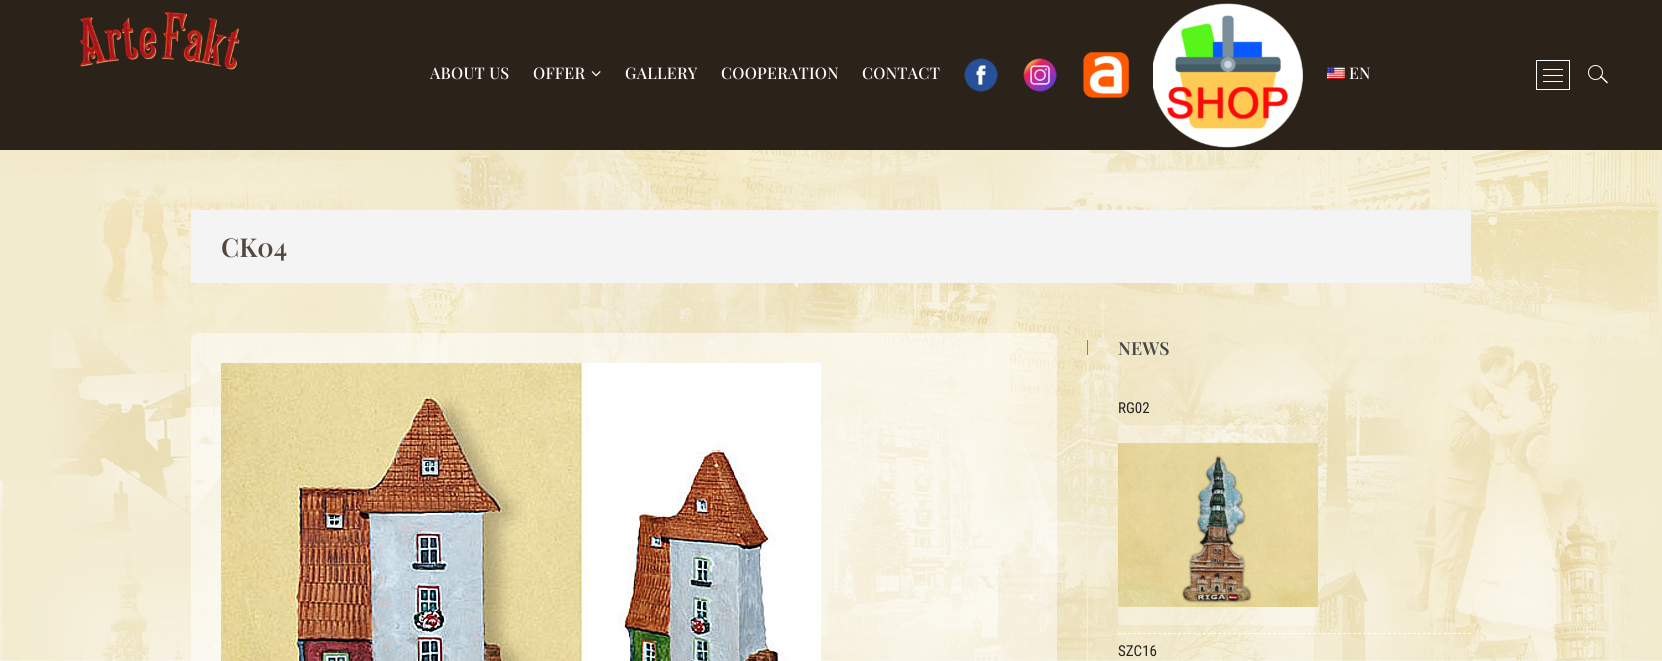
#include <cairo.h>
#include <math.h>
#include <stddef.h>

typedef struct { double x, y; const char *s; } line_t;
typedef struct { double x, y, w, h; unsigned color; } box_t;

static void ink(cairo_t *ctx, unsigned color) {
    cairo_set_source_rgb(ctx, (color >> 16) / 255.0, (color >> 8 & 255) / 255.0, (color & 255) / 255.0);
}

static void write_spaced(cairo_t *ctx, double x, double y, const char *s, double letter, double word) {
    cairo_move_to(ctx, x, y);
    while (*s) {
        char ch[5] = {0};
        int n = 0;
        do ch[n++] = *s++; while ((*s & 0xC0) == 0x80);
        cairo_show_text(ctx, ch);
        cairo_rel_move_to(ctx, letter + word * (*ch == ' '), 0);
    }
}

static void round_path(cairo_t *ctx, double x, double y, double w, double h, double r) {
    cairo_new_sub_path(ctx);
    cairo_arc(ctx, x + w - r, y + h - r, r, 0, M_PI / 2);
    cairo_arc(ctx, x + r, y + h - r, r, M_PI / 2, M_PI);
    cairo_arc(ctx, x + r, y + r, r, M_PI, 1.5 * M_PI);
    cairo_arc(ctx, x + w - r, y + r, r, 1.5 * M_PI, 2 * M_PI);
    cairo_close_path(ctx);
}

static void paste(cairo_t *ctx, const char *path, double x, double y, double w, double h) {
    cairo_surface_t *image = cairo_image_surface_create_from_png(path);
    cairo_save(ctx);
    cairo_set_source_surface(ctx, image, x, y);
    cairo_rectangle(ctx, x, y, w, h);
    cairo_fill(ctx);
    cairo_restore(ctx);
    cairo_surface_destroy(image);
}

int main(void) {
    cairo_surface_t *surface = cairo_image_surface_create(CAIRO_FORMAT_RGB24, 1662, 661);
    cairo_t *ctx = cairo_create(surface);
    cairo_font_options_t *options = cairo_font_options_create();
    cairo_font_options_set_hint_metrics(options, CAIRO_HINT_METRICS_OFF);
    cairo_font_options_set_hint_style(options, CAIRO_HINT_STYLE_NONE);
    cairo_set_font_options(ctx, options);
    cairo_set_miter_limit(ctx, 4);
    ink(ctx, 0xFFFFFF);
    cairo_paint(ctx);
    paste(ctx, "media/1.png", 0, 150, 1662, 511);
    ink(ctx, 0x2B2319);
    cairo_rectangle(ctx, 0, 0, 1662, 150);
    cairo_fill(ctx);
    paste(ctx, "media/2.png", 79, 12, 161, 58);
    cairo_select_font_face(ctx, "Playfair Display Medium", CAIRO_FONT_SLANT_NORMAL, CAIRO_FONT_WEIGHT_NORMAL);
    cairo_set_font_size(ctx, 16);
    ink(ctx, 0xFFFFFF);
    write_spaced(ctx, 430, 79, "ABOUT US", 0.25, 0);
    write_spaced(ctx, 533, 79, "OFFER", 0.25, 0);
    paste(ctx, "media/3.png", 591, 71, 10, 6);
    {
        static const line_t items[] = {
            {625, 79, "GALLERY"},
            {721, 79, "COOPERATION"},
            {862, 79, "CONTACT"},
        };
        for (size_t i = 0; i < sizeof items / sizeof *items; i++) {
            write_spaced(ctx, items[i].x, items[i].y, items[i].s, 0.25, 0);
        }
    }
    paste(ctx, "media/4.png", 964, 58, 34, 34);
    paste(ctx, "media/5.png", 1023, 58, 34, 34);
    paste(ctx, "media/6.png", 1083, 51, 47, 47);
    paste(ctx, "media/7.png", 1153, 3, 150, 145);
    paste(ctx, "media/8.png", 1327, 67, 18, 12);
    write_spaced(ctx, 1349, 79, "EN", 0.25, 0);
    cairo_rectangle(ctx, 1536.5, 60.5, 33, 29);
    cairo_set_line_width(ctx, 1);
    cairo_stroke(ctx);
    {
        static const box_t items[] = {
            {1543, 75, 20, 1, 0xFFFFFF},
            {1543, 69, 20, 1, 0xFFFFFF},
            {1543, 81, 20, 1, 0xFFFFFF},
        };
        for (size_t i = 0; i < sizeof items / sizeof *items; i++) {
            ink(ctx, items[i].color);
            cairo_rectangle(ctx, items[i].x, items[i].y, items[i].w, items[i].h);
            cairo_fill(ctx);
        }
    }
    cairo_arc(ctx, 1595.5, 72.5, 7, 0, 2 * M_PI);
    cairo_stroke(ctx);
    cairo_new_path(ctx);
    cairo_move_to(ctx, 1600, 76.5);
    cairo_line_to(ctx, 1601, 75.5);
    cairo_line_to(ctx, 1608, 82.5);
    cairo_line_to(ctx, 1607, 83.5);
    cairo_close_path(ctx);
    cairo_fill(ctx);
    ink(ctx, 0xF4F4F4);
    cairo_rectangle(ctx, 191, 210, 1280, 73);
    cairo_fill(ctx);
    cairo_select_font_face(ctx, "Playfair Display SemiBold", CAIRO_FONT_SLANT_NORMAL, CAIRO_FONT_WEIGHT_NORMAL);
    cairo_set_font_size(ctx, 26);
    ink(ctx, 0x52483E);
    cairo_move_to(ctx, 221, 257);
    cairo_show_text(ctx, "CK04");
    cairo_set_source_rgba(ctx, 1, 1, 1, 0.5);
    round_path(ctx, 191, 333, 866, 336, 8);
    cairo_fill(ctx);
    paste(ctx, "media/9.png", 221, 363, 600, 298);
    ink(ctx, 0xEEEEEE);
    cairo_rectangle(ctx, 1087, 333, 1, 328);
    cairo_fill(ctx);
    ink(ctx, 0xFD513B);
    cairo_rectangle(ctx, 1087, 340, 1, 15);
    cairo_fill(ctx);
    cairo_set_font_size(ctx, 18);
    ink(ctx, 0x484848);
    cairo_move_to(ctx, 1118, 355);
    cairo_show_text(ctx, "NEWS");
    cairo_new_path(ctx);
    cairo_move_to(ctx, 1118, 633.5);
    cairo_line_to(ctx, 1471, 633.5);
    cairo_set_source_rgba(ctx, 1, 1, 1, 0.9);
    cairo_set_dash(ctx, (double[]){3, 2}, 2, 0);
    cairo_stroke(ctx);
    cairo_select_font_face(ctx, "Roboto Condensed", CAIRO_FONT_SLANT_NORMAL, CAIRO_FONT_WEIGHT_NORMAL);
    cairo_set_font_size(ctx, 15);
    ink(ctx, 0x222222);
    cairo_move_to(ctx, 1118, 413);
    cairo_show_text(ctx, "RG02");
    cairo_set_source_rgba(ctx, 1, 1, 1, 0.27);
    cairo_rectangle(ctx, 1118, 425, 200, 200);
    cairo_fill(ctx);
    paste(ctx, "media/10.png", 1118, 443, 200, 164);
    ink(ctx, 0x222222);
    cairo_move_to(ctx, 1118, 656);
    cairo_show_text(ctx, "SZC16");
    cairo_surface_write_to_png(surface, "image.png");
    cairo_font_options_destroy(options);
    cairo_destroy(ctx);
    cairo_surface_destroy(surface);
    return 0;
}
